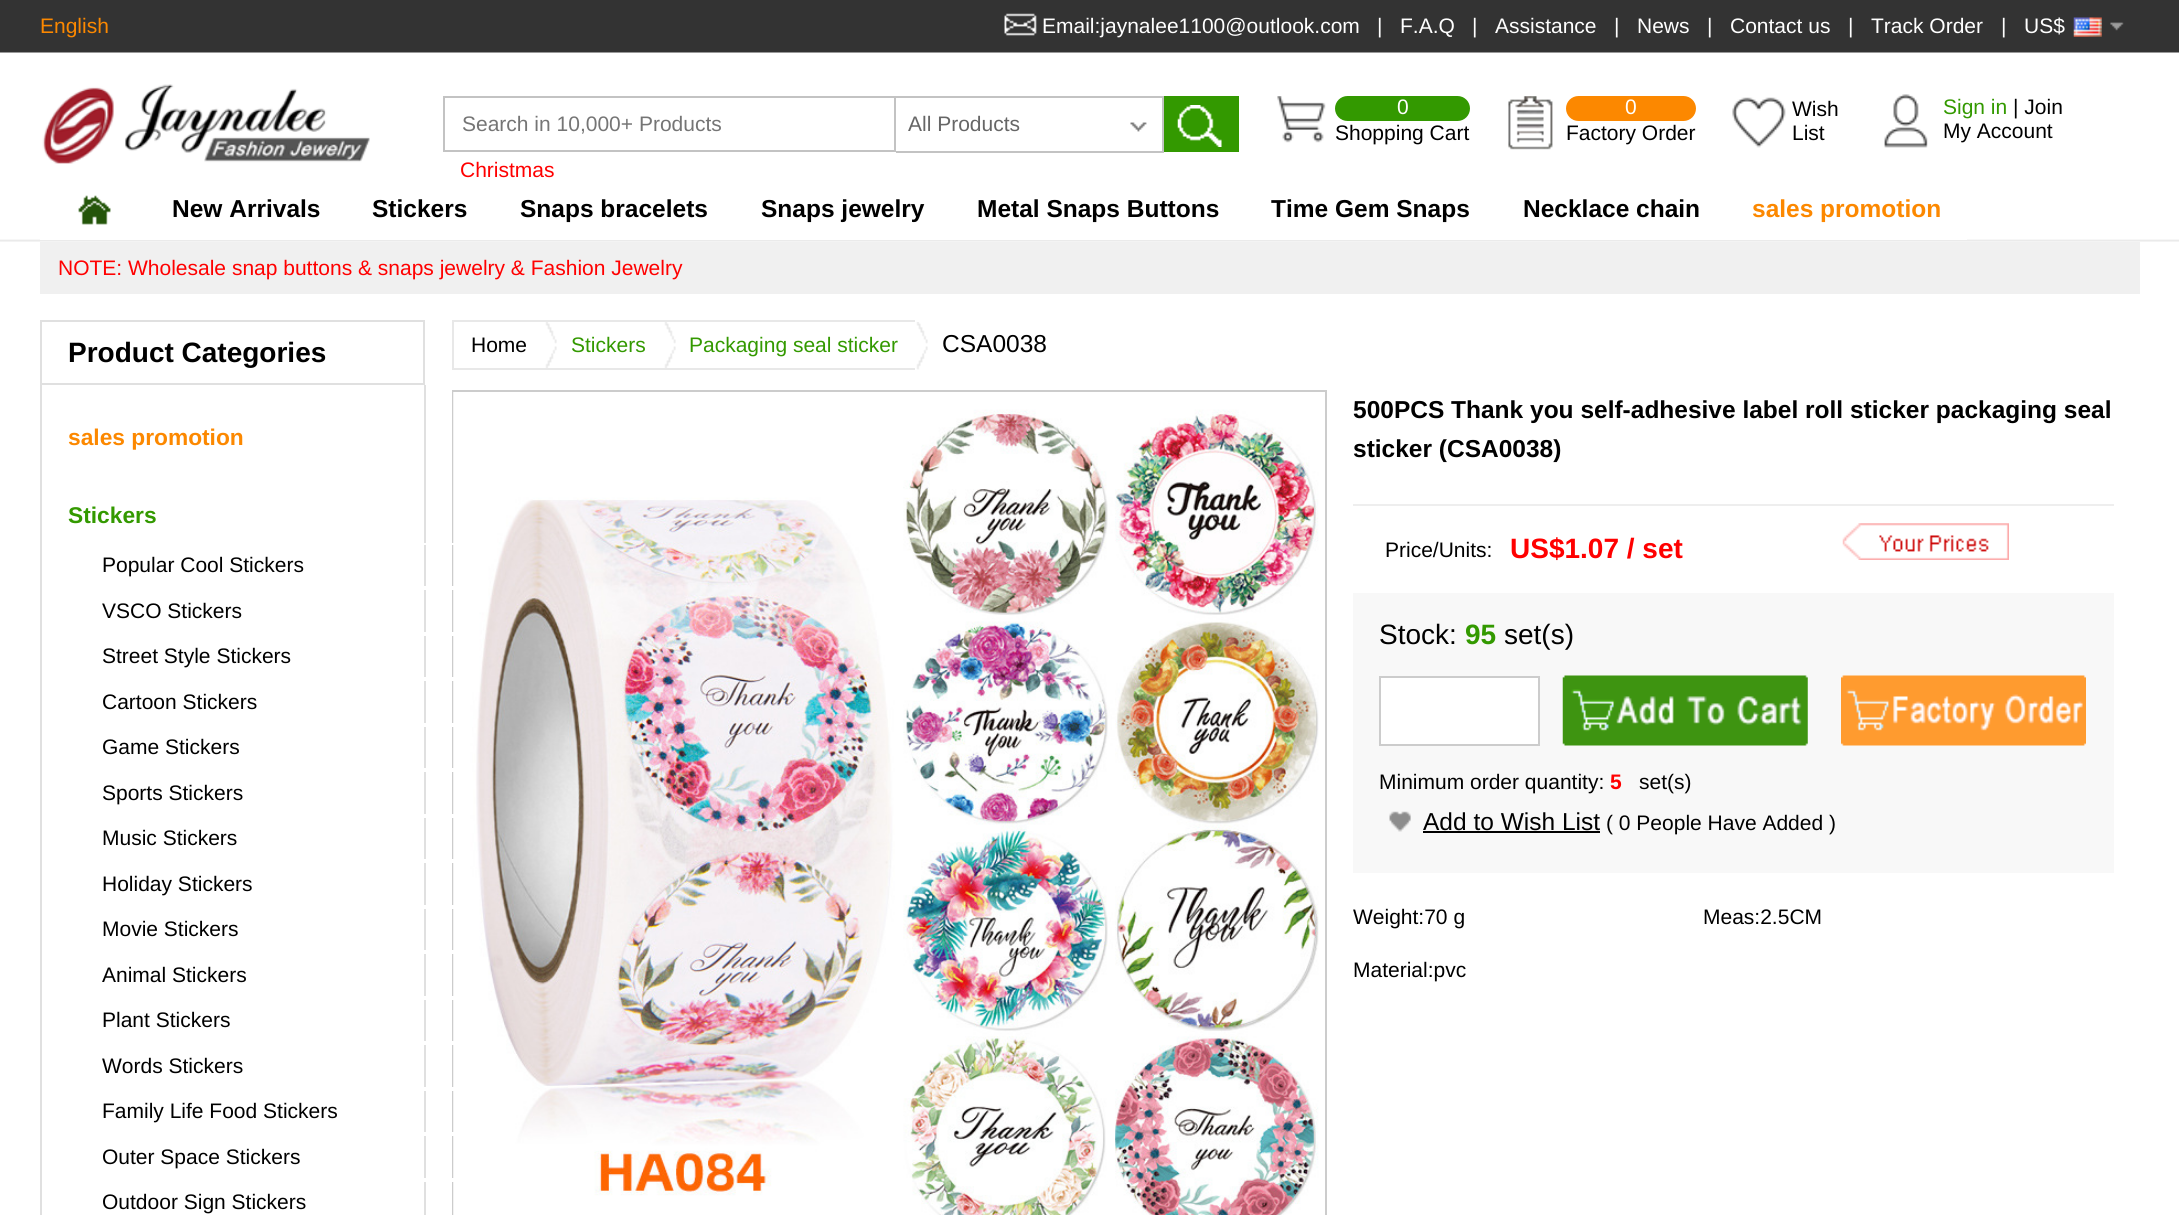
#include <cairo.h>
#include <math.h>
#include <stddef.h>

typedef struct { double x, y; const char *s; } line_t;
typedef struct { double x, y, w, h; unsigned color; } box_t;

static void ink(cairo_t *ctx, unsigned color) {
    cairo_set_source_rgb(ctx, (color >> 16) / 255.0, (color >> 8 & 255) / 255.0, (color & 255) / 255.0);
}

static void round_path(cairo_t *ctx, double x, double y, double w, double h, double r) {
    cairo_new_sub_path(ctx);
    cairo_arc(ctx, x + w - r, y + h - r, r, 0, M_PI / 2);
    cairo_arc(ctx, x + r, y + h - r, r, M_PI / 2, M_PI);
    cairo_arc(ctx, x + r, y + r, r, M_PI, 1.5 * M_PI);
    cairo_arc(ctx, x + w - r, y + r, r, 1.5 * M_PI, 2 * M_PI);
    cairo_close_path(ctx);
}

static void paste(cairo_t *ctx, const char *path, double x, double y, double w, double h) {
    cairo_surface_t *image = cairo_image_surface_create_from_png(path);
    cairo_save(ctx);
    cairo_set_source_surface(ctx, image, x, y);
    cairo_rectangle(ctx, x, y, w, h);
    cairo_fill(ctx);
    cairo_restore(ctx);
    cairo_surface_destroy(image);
}

int main(void) {
    cairo_surface_t *surface = cairo_image_surface_create(CAIRO_FORMAT_RGB24, 2179, 1215);
    cairo_t *ctx = cairo_create(surface);
    cairo_font_options_t *options = cairo_font_options_create();
    cairo_font_options_set_hint_metrics(options, CAIRO_HINT_METRICS_OFF);
    cairo_font_options_set_hint_style(options, CAIRO_HINT_STYLE_NONE);
    cairo_set_font_options(ctx, options);
    cairo_set_miter_limit(ctx, 4);
    ink(ctx, 0xFFFFFF);
    cairo_paint(ctx);
    paste(ctx, "media/1.png", 0, 0, 2179, 242);
    cairo_select_font_face(ctx, "Liberation Sans", CAIRO_FONT_SLANT_NORMAL, CAIRO_FONT_WEIGHT_NORMAL);
    cairo_set_font_size(ctx, 21);
    ink(ctx, 0xFC8800);
    cairo_move_to(ctx, 40, 33);
    cairo_show_text(ctx, "English");
    paste(ctx, "media/2.png", 1004, 13, 33, 23);
    ink(ctx, 0xFFFFFF);
    {
        static const line_t items[] = {
            {1042, 33, "Email:jaynalee1100@outlook.com"},
            {1377, 33, "|"},
            {1400, 33, "F.A.Q"},
            {1472, 33, "|"},
            {1495, 33, "Assistance"},
            {1614, 33, "|"},
            {1637, 33, "News"},
            {1707, 33, "|"},
            {1730, 33, "Contact us"},
            {1848, 33, "|"},
            {1871, 33, "Track Order"},
            {2001, 33, "|"},
        };
        for (size_t i = 0; i < sizeof items / sizeof *items; i++) {
            cairo_move_to(ctx, items[i].x, items[i].y);
            cairo_show_text(ctx, items[i].s);
        }
    }
    paste(ctx, "media/3.png", 2110, 22, 14, 9);
    cairo_move_to(ctx, 2024, 33);
    cairo_show_text(ctx, "US$");
    paste(ctx, "media/4.png", 2073, 17, 29, 20);
    paste(ctx, "media/5.png", 42, 84, 328, 80);
    cairo_rectangle(ctx, 444, 97, 451, 54);
    ink(ctx, 0xC3C3C3);
    cairo_stroke(ctx);
    ink(ctx, 0x757575);
    cairo_move_to(ctx, 462, 131);
    cairo_show_text(ctx, "Search in 10,000+ Products");
    paste(ctx, "media/6.png", 1130, 122, 17, 10);
    {
        static const box_t items[] = {
            {896, 96, 268, 2, 0xC3C3C3},
            {1162, 96, 2, 56, 0xC3C3C3},
            {896, 151, 268, 2, 0xC3C3C3},
        };
        for (size_t i = 0; i < sizeof items / sizeof *items; i++) {
            ink(ctx, items[i].color);
            cairo_rectangle(ctx, items[i].x, items[i].y, items[i].w, items[i].h);
            cairo_fill(ctx);
        }
    }
    ink(ctx, 0x666666);
    cairo_move_to(ctx, 908, 131);
    cairo_show_text(ctx, "All Products");
    ink(ctx, 0x339900);
    cairo_rectangle(ctx, 1164, 96, 75, 56);
    cairo_fill(ctx);
    paste(ctx, "media/7.png", 1177, 105, 45, 42);
    ink(ctx, 0xFF0000);
    cairo_move_to(ctx, 460, 177);
    cairo_show_text(ctx, "Christmas");
    paste(ctx, "media/8.png", 1277, 96, 49, 47);
    ink(ctx, 0x339900);
    round_path(ctx, 1335, 96, 135, 25, 12.5);
    cairo_fill(ctx);
    ink(ctx, 0xFFFFFF);
    cairo_move_to(ctx, 1397, 114);
    cairo_show_text(ctx, "0");
    ink(ctx, 0x000000);
    cairo_move_to(ctx, 1335, 140);
    cairo_show_text(ctx, "Shopping Cart");
    paste(ctx, "media/9.png", 1508, 96, 45, 54);
    ink(ctx, 0xFC8800);
    round_path(ctx, 1566, 96, 130, 25, 12.5);
    cairo_fill(ctx);
    ink(ctx, 0xFFFFFF);
    cairo_move_to(ctx, 1625, 114);
    cairo_show_text(ctx, "0");
    ink(ctx, 0x000000);
    cairo_move_to(ctx, 1566, 140);
    cairo_show_text(ctx, "Factory Order");
    paste(ctx, "media/10.png", 1732, 97, 54, 51);
    cairo_move_to(ctx, 1792, 116);
    cairo_show_text(ctx, "Wish");
    cairo_move_to(ctx, 1792, 140);
    cairo_show_text(ctx, "List");
    paste(ctx, "media/11.png", 1884, 94, 44, 54);
    ink(ctx, 0x339900);
    cairo_move_to(ctx, 1943, 114);
    cairo_show_text(ctx, "Sign in");
    ink(ctx, 0x000000);
    cairo_move_to(ctx, 2013, 114);
    cairo_show_text(ctx, "| Join");
    cairo_move_to(ctx, 1943, 138);
    cairo_show_text(ctx, "My Account");
    ink(ctx, 0xFFFFFF);
    cairo_rectangle(ctx, 40, 239, 1927, 1);
    cairo_fill(ctx);
    paste(ctx, "media/12.png", 78, 195, 33, 30);
    cairo_select_font_face(ctx, "Liberation Sans", CAIRO_FONT_SLANT_NORMAL, CAIRO_FONT_WEIGHT_BOLD);
    cairo_set_font_size(ctx, 24.5);
    ink(ctx, 0x000000);
    {
        static const line_t items[] = {
            {172, 217, "New Arrivals"},
            {372, 217, "Stickers"},
            {520, 217, "Snaps bracelets"},
            {761, 217, "Snaps jewelry"},
            {977, 217, "Metal Snaps Buttons"},
            {1271, 217, "Time Gem Snaps"},
            {1523, 217, "Necklace chain"},
        };
        for (size_t i = 0; i < sizeof items / sizeof *items; i++) {
            cairo_move_to(ctx, items[i].x, items[i].y);
            cairo_show_text(ctx, items[i].s);
        }
    }
    ink(ctx, 0xFC8800);
    cairo_move_to(ctx, 1752, 217);
    cairo_show_text(ctx, "sales promotion");
    ink(ctx, 0xF0F0F0);
    cairo_rectangle(ctx, 40, 242, 2100, 52);
    cairo_fill(ctx);
    cairo_select_font_face(ctx, "Liberation Sans", CAIRO_FONT_SLANT_NORMAL, CAIRO_FONT_WEIGHT_NORMAL);
    cairo_set_font_size(ctx, 21);
    ink(ctx, 0xFF0000);
    cairo_move_to(ctx, 58, 275);
    cairo_show_text(ctx, "NOTE: Wholesale snap buttons & snaps jewelry & Fashion Jewelry");
    cairo_rectangle(ctx, 41, 321, 383, 63);
    ink(ctx, 0xE0E0E0);
    cairo_stroke(ctx);
    cairo_select_font_face(ctx, "Liberation Sans", CAIRO_FONT_SLANT_NORMAL, CAIRO_FONT_WEIGHT_BOLD);
    cairo_set_font_size(ctx, 28);
    ink(ctx, 0x000000);
    cairo_move_to(ctx, 68, 362);
    cairo_show_text(ctx, "Product Categories");
    ink(ctx, 0xE0E0E0);
    cairo_rectangle(ctx, 424, 385, 2, 830);
    cairo_fill(ctx);
    cairo_rectangle(ctx, 40, 385, 2, 830);
    cairo_fill(ctx);
    cairo_set_font_size(ctx, 22.75);
    ink(ctx, 0xFC8800);
    cairo_move_to(ctx, 68, 445);
    cairo_show_text(ctx, "sales promotion");
    ink(ctx, 0x339900);
    cairo_move_to(ctx, 68, 523);
    cairo_show_text(ctx, "Stickers");
    cairo_rectangle(ctx, 453, 391, 873, 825);
    ink(ctx, 0xCCCCCC);
    cairo_stroke(ctx);
    paste(ctx, "media/16.png", 453, 392, 866, 823);
    ink(ctx, 0xFFFFFF);
    cairo_rectangle(ctx, 424, 543, 31, 2);
    cairo_fill(ctx);
    cairo_rectangle(ctx, 424, 586, 31, 4);
    cairo_fill(ctx);
    cairo_select_font_face(ctx, "Liberation Sans", CAIRO_FONT_SLANT_NORMAL, CAIRO_FONT_WEIGHT_NORMAL);
    cairo_set_font_size(ctx, 21);
    ink(ctx, 0x000000);
    cairo_move_to(ctx, 102, 572);
    cairo_show_text(ctx, "Popular Cool Stickers");
    ink(ctx, 0xFFFFFF);
    cairo_rectangle(ctx, 424, 632, 31, 4);
    cairo_fill(ctx);
    ink(ctx, 0x000000);
    cairo_move_to(ctx, 102, 618);
    cairo_show_text(ctx, "VSCO Stickers");
    ink(ctx, 0xFFFFFF);
    cairo_rectangle(ctx, 424, 677, 31, 4);
    cairo_fill(ctx);
    ink(ctx, 0x000000);
    cairo_move_to(ctx, 102, 663);
    cairo_show_text(ctx, "Street Style Stickers");
    ink(ctx, 0xFFFFFF);
    cairo_rectangle(ctx, 424, 723, 31, 4);
    cairo_fill(ctx);
    ink(ctx, 0x000000);
    cairo_move_to(ctx, 102, 709);
    cairo_show_text(ctx, "Cartoon Stickers");
    ink(ctx, 0xFFFFFF);
    cairo_rectangle(ctx, 424, 768, 31, 4);
    cairo_fill(ctx);
    ink(ctx, 0x000000);
    cairo_move_to(ctx, 102, 754);
    cairo_show_text(ctx, "Game Stickers");
    ink(ctx, 0xFFFFFF);
    cairo_rectangle(ctx, 424, 814, 31, 4);
    cairo_fill(ctx);
    ink(ctx, 0x000000);
    cairo_move_to(ctx, 102, 800);
    cairo_show_text(ctx, "Sports Stickers");
    ink(ctx, 0xFFFFFF);
    cairo_rectangle(ctx, 424, 859, 31, 4);
    cairo_fill(ctx);
    ink(ctx, 0x000000);
    cairo_move_to(ctx, 102, 845);
    cairo_show_text(ctx, "Music Stickers");
    ink(ctx, 0xFFFFFF);
    cairo_rectangle(ctx, 424, 905, 31, 4);
    cairo_fill(ctx);
    ink(ctx, 0x000000);
    cairo_move_to(ctx, 102, 891);
    cairo_show_text(ctx, "Holiday Stickers");
    ink(ctx, 0xFFFFFF);
    cairo_rectangle(ctx, 424, 950, 31, 4);
    cairo_fill(ctx);
    ink(ctx, 0x000000);
    cairo_move_to(ctx, 102, 936);
    cairo_show_text(ctx, "Movie Stickers");
    ink(ctx, 0xFFFFFF);
    cairo_rectangle(ctx, 424, 996, 31, 4);
    cairo_fill(ctx);
    ink(ctx, 0x000000);
    cairo_move_to(ctx, 102, 982);
    cairo_show_text(ctx, "Animal Stickers");
    ink(ctx, 0xFFFFFF);
    cairo_rectangle(ctx, 424, 1041, 31, 4);
    cairo_fill(ctx);
    ink(ctx, 0x000000);
    cairo_move_to(ctx, 102, 1027);
    cairo_show_text(ctx, "Plant Stickers");
    ink(ctx, 0xFFFFFF);
    cairo_rectangle(ctx, 424, 1087, 31, 4);
    cairo_fill(ctx);
    ink(ctx, 0x000000);
    cairo_move_to(ctx, 102, 1073);
    cairo_show_text(ctx, "Words Stickers");
    ink(ctx, 0xFFFFFF);
    cairo_rectangle(ctx, 424, 1132, 31, 4);
    cairo_fill(ctx);
    ink(ctx, 0x000000);
    cairo_move_to(ctx, 102, 1118);
    cairo_show_text(ctx, "Family Life Food Stickers");
    ink(ctx, 0xFFFFFF);
    cairo_rectangle(ctx, 424, 1178, 31, 4);
    cairo_fill(ctx);
    ink(ctx, 0x000000);
    cairo_move_to(ctx, 102, 1164);
    cairo_show_text(ctx, "Outer Space Stickers");
    cairo_move_to(ctx, 102, 1209);
    cairo_show_text(ctx, "Outdoor Sign Stickers");
    {
        static const box_t items[] = {
            {452, 320, 463, 2, 0xE8E8E8},
            {452, 368, 463, 2, 0xE8E8E8},
            {452, 320, 2, 49, 0xE8E8E8},
        };
        for (size_t i = 0; i < sizeof items / sizeof *items; i++) {
            ink(ctx, items[i].color);
            cairo_rectangle(ctx, items[i].x, items[i].y, items[i].w, items[i].h);
            cairo_fill(ctx);
        }
    }
    ink(ctx, 0x000000);
    cairo_move_to(ctx, 471, 352);
    cairo_show_text(ctx, "Home");
    paste(ctx, "media/13.png", 545, 322, 12, 46);
    ink(ctx, 0x339900);
    cairo_move_to(ctx, 571, 352);
    cairo_show_text(ctx, "Stickers");
    paste(ctx, "media/14.png", 664, 322, 12, 46);
    cairo_move_to(ctx, 689, 352);
    cairo_show_text(ctx, "Packaging seal sticker");
    paste(ctx, "media/15.png", 916, 322, 12, 48);
    cairo_set_font_size(ctx, 24.5);
    ink(ctx, 0x000000);
    cairo_move_to(ctx, 942, 352);
    cairo_show_text(ctx, "CSA0038");
    ink(ctx, 0xEEEEEE);
    cairo_rectangle(ctx, 1353, 504, 761, 2);
    cairo_fill(ctx);
    cairo_select_font_face(ctx, "Liberation Sans", CAIRO_FONT_SLANT_NORMAL, CAIRO_FONT_WEIGHT_BOLD);
    ink(ctx, 0x000000);
    cairo_move_to(ctx, 1353, 418);
    cairo_show_text(ctx, "500PCS Thank you self-adhesive label roll sticker packaging seal");
    cairo_move_to(ctx, 1353, 457);
    cairo_show_text(ctx, "sticker (CSA0038)");
    cairo_select_font_face(ctx, "Liberation Sans", CAIRO_FONT_SLANT_NORMAL, CAIRO_FONT_WEIGHT_NORMAL);
    cairo_set_font_size(ctx, 21);
    cairo_move_to(ctx, 1385, 557);
    cairo_show_text(ctx, "Price/Units:");
    cairo_select_font_face(ctx, "Liberation Sans", CAIRO_FONT_SLANT_NORMAL, CAIRO_FONT_WEIGHT_BOLD);
    cairo_set_font_size(ctx, 28);
    ink(ctx, 0xFF0000);
    cairo_move_to(ctx, 1510, 558);
    cairo_show_text(ctx, "US$1.07 / set");
    paste(ctx, "media/17.png", 1842, 523, 167, 37);
    ink(ctx, 0xF8F8F8);
    cairo_rectangle(ctx, 1353, 593, 761, 280);
    cairo_fill(ctx);
    cairo_select_font_face(ctx, "Liberation Sans", CAIRO_FONT_SLANT_NORMAL, CAIRO_FONT_WEIGHT_NORMAL);
    ink(ctx, 0x000000);
    cairo_move_to(ctx, 1379, 644);
    cairo_show_text(ctx, "Stock:");
    cairo_select_font_face(ctx, "Liberation Sans", CAIRO_FONT_SLANT_NORMAL, CAIRO_FONT_WEIGHT_BOLD);
    ink(ctx, 0x339900);
    cairo_move_to(ctx, 1465, 644);
    cairo_show_text(ctx, "95");
    cairo_select_font_face(ctx, "Liberation Sans", CAIRO_FONT_SLANT_NORMAL, CAIRO_FONT_WEIGHT_NORMAL);
    ink(ctx, 0x000000);
    cairo_move_to(ctx, 1504, 644);
    cairo_show_text(ctx, "set(s)");
    ink(ctx, 0xFFFFFF);
    cairo_rectangle(ctx, 1380, 677, 159, 68);
    cairo_fill_preserve(ctx);
    ink(ctx, 0xCCCCCC);
    cairo_stroke(ctx);
    paste(ctx, "media/18.png", 1562, 675, 246, 71);
    paste(ctx, "media/19.png", 1841, 675, 245, 71);
    cairo_set_font_size(ctx, 21);
    ink(ctx, 0x000000);
    cairo_move_to(ctx, 1379, 789);
    cairo_show_text(ctx, "Minimum order quantity:");
    cairo_select_font_face(ctx, "Liberation Sans", CAIRO_FONT_SLANT_NORMAL, CAIRO_FONT_WEIGHT_BOLD);
    ink(ctx, 0xFF0000);
    cairo_move_to(ctx, 1610, 789);
    cairo_show_text(ctx, "5");
    cairo_select_font_face(ctx, "Liberation Sans", CAIRO_FONT_SLANT_NORMAL, CAIRO_FONT_WEIGHT_NORMAL);
    ink(ctx, 0x000000);
    cairo_move_to(ctx, 1639, 789);
    cairo_show_text(ctx, "set(s)");
    paste(ctx, "media/20.png", 1389, 811, 22, 21);
    cairo_set_font_size(ctx, 24.5);
    cairo_move_to(ctx, 1423, 830);
    cairo_show_text(ctx, "Add to Wish List");
    cairo_rectangle(ctx, 1423, 831, 177, 2);
    cairo_fill(ctx);
    cairo_set_font_size(ctx, 21);
    {
        static const line_t items[] = {
            {1606, 830, "( 0 People Have Added )"},
            {1353, 924, "Weight:70 g"},
            {1703, 924, "Meas:2.5CM"},
            {1353, 977, "Material:pvc"},
        };
        for (size_t i = 0; i < sizeof items / sizeof *items; i++) {
            cairo_move_to(ctx, items[i].x, items[i].y);
            cairo_show_text(ctx, items[i].s);
        }
    }
    cairo_surface_write_to_png(surface, "image.png");
    cairo_font_options_destroy(options);
    cairo_destroy(ctx);
    cairo_surface_destroy(surface);
    return 0;
}
